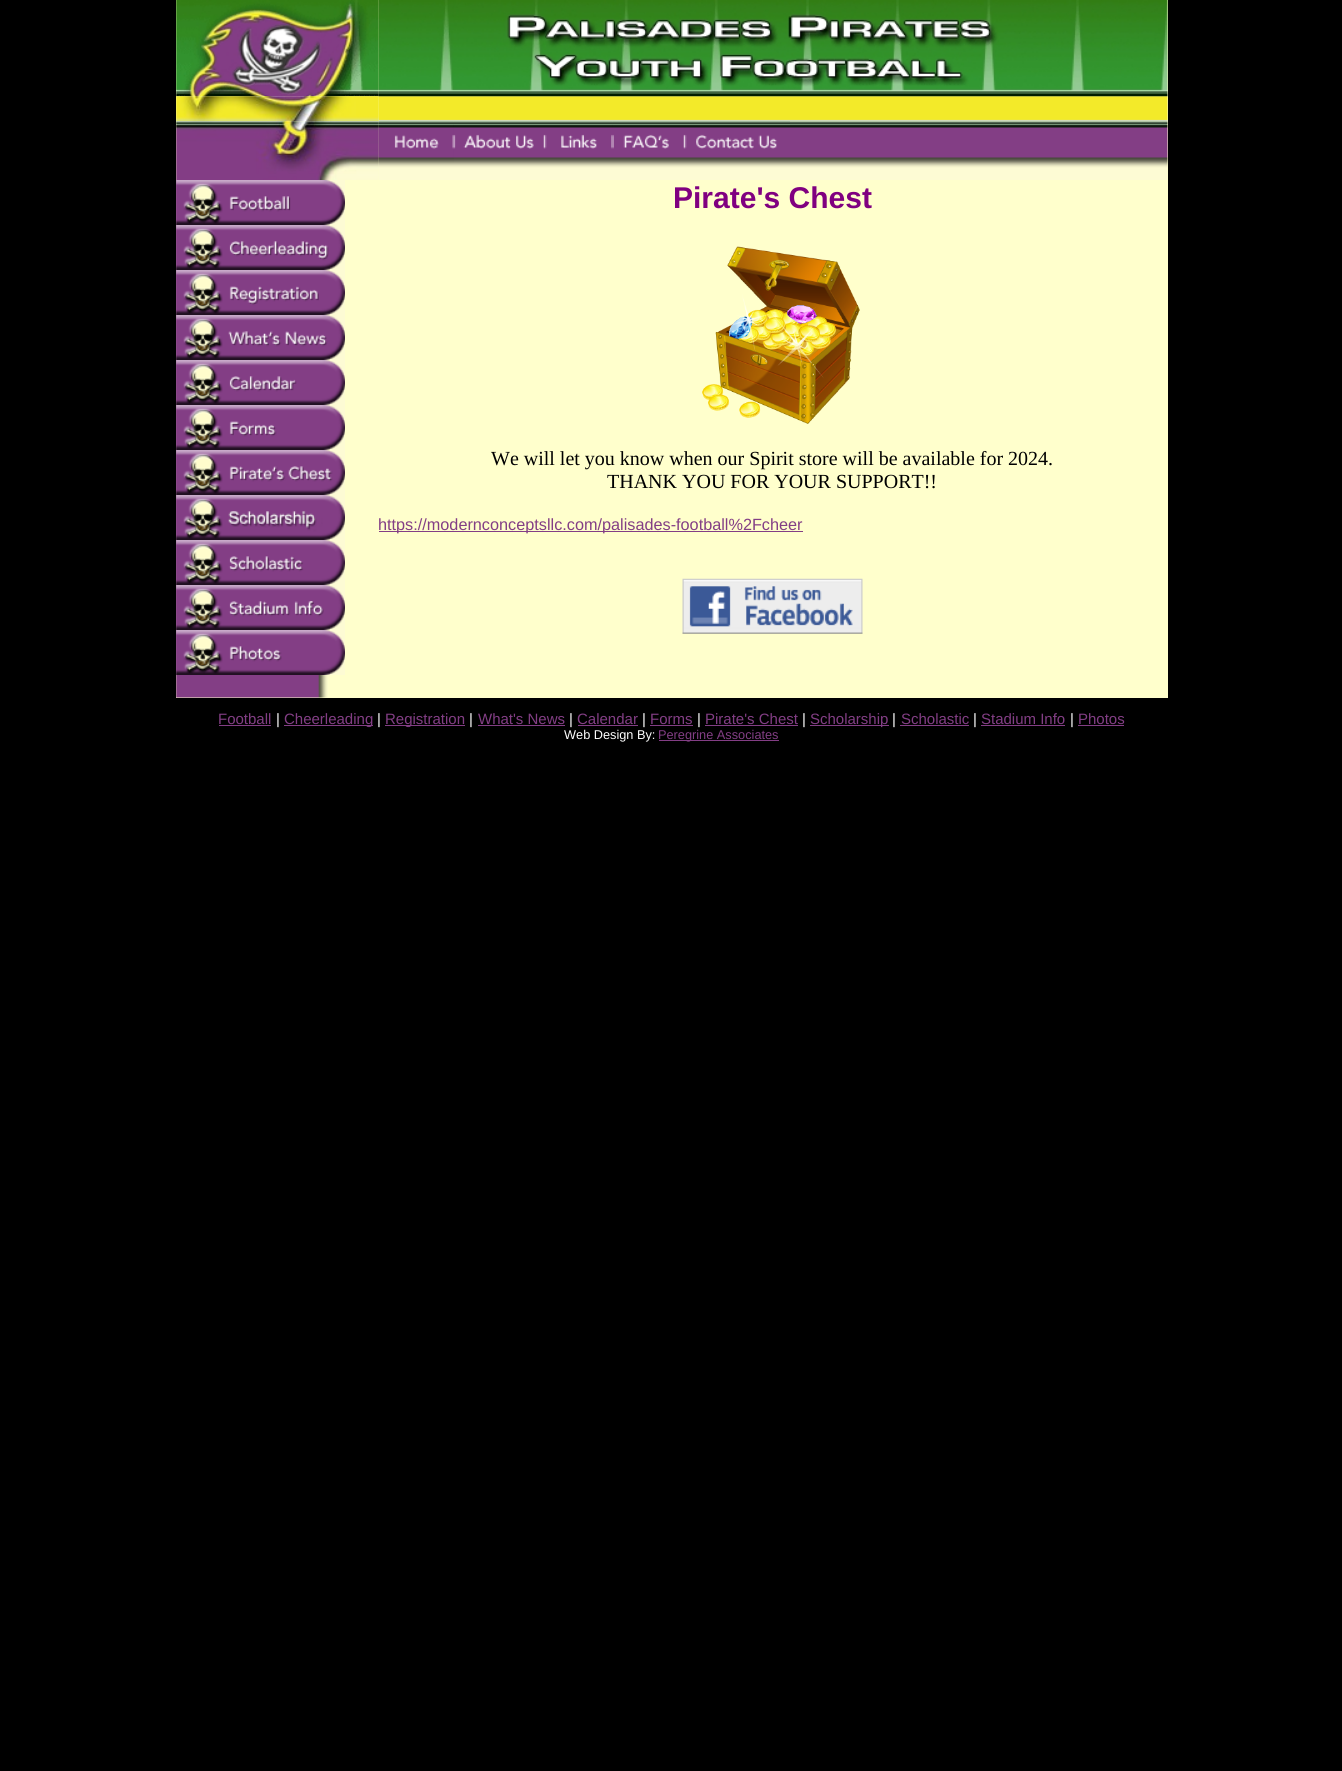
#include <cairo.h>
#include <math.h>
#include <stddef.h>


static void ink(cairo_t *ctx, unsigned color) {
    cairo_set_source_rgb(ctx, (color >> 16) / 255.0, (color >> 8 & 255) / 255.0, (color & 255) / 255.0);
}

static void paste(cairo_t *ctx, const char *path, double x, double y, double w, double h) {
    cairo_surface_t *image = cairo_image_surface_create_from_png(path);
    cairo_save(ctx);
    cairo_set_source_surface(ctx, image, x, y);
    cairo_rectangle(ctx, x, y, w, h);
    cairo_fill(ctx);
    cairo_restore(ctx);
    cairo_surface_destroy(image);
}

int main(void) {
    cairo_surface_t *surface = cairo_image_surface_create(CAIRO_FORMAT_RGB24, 1342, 1771);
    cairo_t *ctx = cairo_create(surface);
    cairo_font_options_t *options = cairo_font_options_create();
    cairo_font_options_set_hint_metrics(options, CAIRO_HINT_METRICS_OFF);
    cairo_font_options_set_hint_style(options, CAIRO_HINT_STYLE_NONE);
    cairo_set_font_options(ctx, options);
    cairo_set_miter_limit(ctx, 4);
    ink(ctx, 0x000000);
    cairo_paint(ctx);
    ink(ctx, 0xFFFFCC);
    cairo_rectangle(ctx, 176, 0, 992, 698);
    cairo_fill(ctx);
    paste(ctx, "media/4.png", 378, 96, 790, 26);
    paste(ctx, "media/1.png", 176, 0, 203, 97);
    paste(ctx, "media/2.png", 378, 0, 790, 97);
    paste(ctx, "media/6.png", 378, 121, 790, 59);
    paste(ctx, "media/3.png", 176, 96, 203, 26);
    paste(ctx, "media/5.png", 176, 121, 203, 59);
    paste(ctx, "media/7.png", 378, 121, 76, 42);
    paste(ctx, "media/8.png", 453, 121, 92, 28);
    paste(ctx, "media/9.png", 545, 121, 68, 28);
    paste(ctx, "media/10.png", 612, 121, 73, 28);
    paste(ctx, "media/11.png", 685, 121, 105, 28);
    paste(ctx, "media/12.png", 176, 180, 1, 495);
    paste(ctx, "media/13.png", 176, 180, 169, 45);
    paste(ctx, "media/14.png", 176, 225, 169, 45);
    paste(ctx, "media/15.png", 176, 270, 169, 45);
    paste(ctx, "media/16.png", 176, 315, 169, 45);
    paste(ctx, "media/17.png", 176, 360, 169, 45);
    paste(ctx, "media/18.png", 176, 405, 169, 45);
    paste(ctx, "media/19.png", 176, 450, 169, 45);
    paste(ctx, "media/20.png", 176, 495, 169, 45);
    paste(ctx, "media/21.png", 176, 540, 169, 45);
    paste(ctx, "media/22.png", 176, 585, 169, 45);
    paste(ctx, "media/23.png", 176, 630, 169, 45);
    cairo_select_font_face(ctx, "Liberation Sans", CAIRO_FONT_SLANT_NORMAL, CAIRO_FONT_WEIGHT_BOLD);
    cairo_set_font_size(ctx, 30);
    ink(ctx, 0x800080);
    cairo_move_to(ctx, 673, 208);
    cairo_show_text(ctx, "Pirate's Chest");
    paste(ctx, "media/24.png", 702, 246, 158, 178);
    cairo_select_font_face(ctx, "Liberation Serif", CAIRO_FONT_SLANT_NORMAL, CAIRO_FONT_WEIGHT_NORMAL);
    cairo_set_font_size(ctx, 20);
    ink(ctx, 0x000000);
    cairo_move_to(ctx, 491, 465);
    cairo_show_text(ctx, "We will let you know when our Spirit store will be available for 2024.");
    cairo_move_to(ctx, 607, 488);
    cairo_show_text(ctx, "THANK YOU FOR YOUR SUPPORT!!");
    ink(ctx, 0x833E85);
    cairo_rectangle(ctx, 379, 531, 424, 1);
    cairo_fill(ctx);
    cairo_select_font_face(ctx, "Liberation Sans", CAIRO_FONT_SLANT_NORMAL, CAIRO_FONT_WEIGHT_NORMAL);
    cairo_set_font_size(ctx, 16.25);
    cairo_move_to(ctx, 378, 530);
    cairo_show_text(ctx, "https://modernconceptsllc.com/palisades-football%2Fcheer");
    paste(ctx, "media/25.png", 682, 578, 181, 56);
    paste(ctx, "media/26.png", 176, 675, 152, 23);
    cairo_set_font_size(ctx, 15);
    cairo_move_to(ctx, 218, 724);
    cairo_show_text(ctx, "Football");
    cairo_rectangle(ctx, 219, 725, 52, 1);
    cairo_fill(ctx);
    ink(ctx, 0xFFFFFF);
    cairo_move_to(ctx, 276, 724);
    cairo_show_text(ctx, "|");
    ink(ctx, 0x833E85);
    cairo_rectangle(ctx, 284, 725, 89, 1);
    cairo_fill(ctx);
    cairo_move_to(ctx, 284, 724);
    cairo_show_text(ctx, "Cheerleading");
    ink(ctx, 0xFFFFFF);
    cairo_move_to(ctx, 377, 724);
    cairo_show_text(ctx, "|");
    ink(ctx, 0x833E85);
    cairo_rectangle(ctx, 385, 725, 80, 1);
    cairo_fill(ctx);
    cairo_move_to(ctx, 385, 724);
    cairo_show_text(ctx, "Registration");
    ink(ctx, 0xFFFFFF);
    cairo_move_to(ctx, 469, 724);
    cairo_show_text(ctx, "|");
    ink(ctx, 0x833E85);
    cairo_move_to(ctx, 478, 724);
    cairo_show_text(ctx, "What's News");
    cairo_rectangle(ctx, 478, 725, 87, 1);
    cairo_fill(ctx);
    ink(ctx, 0xFFFFFF);
    cairo_move_to(ctx, 569, 724);
    cairo_show_text(ctx, "|");
    ink(ctx, 0x833E85);
    cairo_move_to(ctx, 577, 724);
    cairo_show_text(ctx, "Calendar");
    cairo_rectangle(ctx, 578, 725, 60, 1);
    cairo_fill(ctx);
    ink(ctx, 0xFFFFFF);
    cairo_move_to(ctx, 642, 724);
    cairo_show_text(ctx, "|");
    ink(ctx, 0x833E85);
    cairo_move_to(ctx, 650, 724);
    cairo_show_text(ctx, "Forms");
    cairo_rectangle(ctx, 650, 725, 43, 1);
    cairo_fill(ctx);
    ink(ctx, 0xFFFFFF);
    cairo_move_to(ctx, 697, 724);
    cairo_show_text(ctx, "|");
    ink(ctx, 0x833E85);
    cairo_move_to(ctx, 705, 724);
    cairo_show_text(ctx, "Pirate's Chest");
    cairo_rectangle(ctx, 705, 725, 93, 1);
    cairo_fill(ctx);
    ink(ctx, 0xFFFFFF);
    cairo_move_to(ctx, 802, 724);
    cairo_show_text(ctx, "|");
    ink(ctx, 0x833E85);
    cairo_rectangle(ctx, 810, 725, 79, 1);
    cairo_fill(ctx);
    cairo_move_to(ctx, 810, 724);
    cairo_show_text(ctx, "Scholarship");
    ink(ctx, 0xFFFFFF);
    cairo_move_to(ctx, 892, 724);
    cairo_show_text(ctx, "|");
    ink(ctx, 0x833E85);
    cairo_move_to(ctx, 901, 724);
    cairo_show_text(ctx, "Scholastic");
    cairo_rectangle(ctx, 900, 725, 69, 1);
    cairo_fill(ctx);
    ink(ctx, 0xFFFFFF);
    cairo_move_to(ctx, 973, 724);
    cairo_show_text(ctx, "|");
    ink(ctx, 0x833E85);
    cairo_move_to(ctx, 981, 724);
    cairo_show_text(ctx, "Stadium Info");
    cairo_rectangle(ctx, 981, 725, 84, 1);
    cairo_fill(ctx);
    ink(ctx, 0xFFFFFF);
    cairo_move_to(ctx, 1070, 724);
    cairo_show_text(ctx, "|");
    ink(ctx, 0x833E85);
    cairo_move_to(ctx, 1078, 724);
    cairo_show_text(ctx, "Photos");
    cairo_rectangle(ctx, 1078, 725, 46, 1);
    cairo_fill(ctx);
    cairo_set_font_size(ctx, 12.75);
    ink(ctx, 0xFFFFFF);
    cairo_move_to(ctx, 564, 739);
    cairo_show_text(ctx, "Web Design By:");
    ink(ctx, 0x833E85);
    cairo_rectangle(ctx, 659, 740, 120, 1);
    cairo_fill(ctx);
    cairo_move_to(ctx, 658, 739);
    cairo_show_text(ctx, "Peregrine Associates");
    cairo_surface_write_to_png(surface, "image.png");
    cairo_font_options_destroy(options);
    cairo_destroy(ctx);
    cairo_surface_destroy(surface);
    return 0;
}
